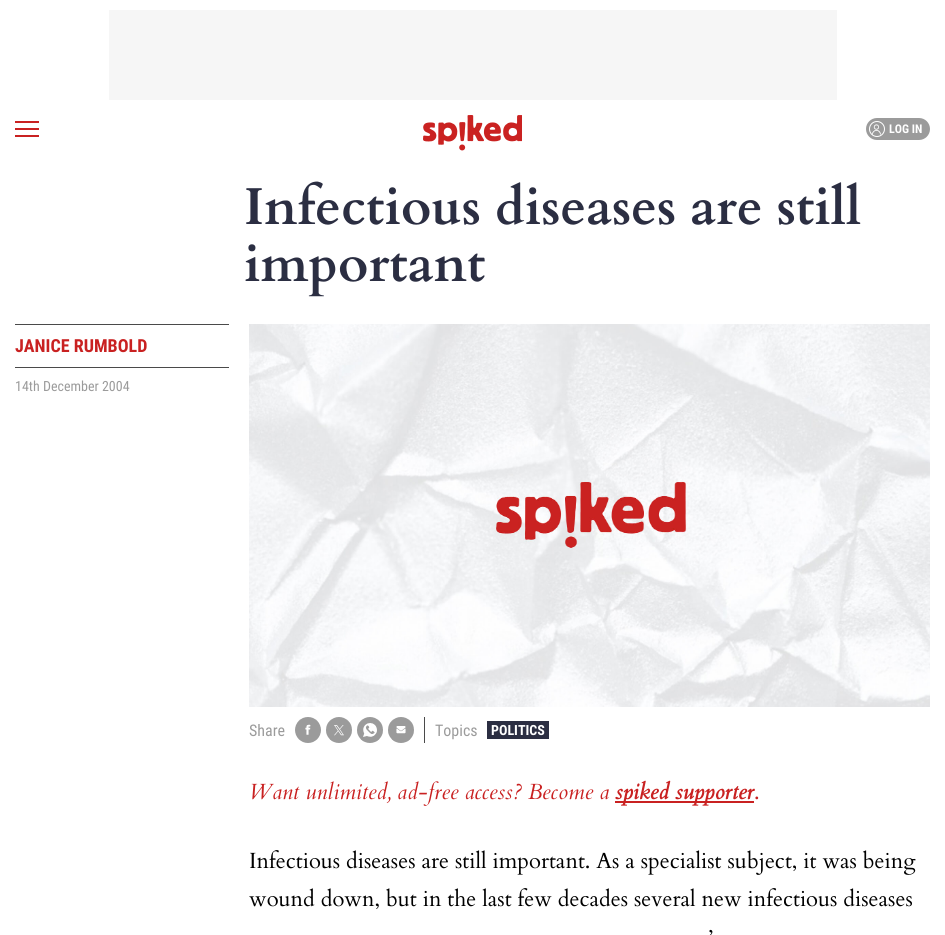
#include <cairo.h>
#include <math.h>
#include <stddef.h>

typedef struct { double x, y; const char *s; } line_t;
typedef struct { double x, y, w, h; unsigned color; } box_t;

static void ink(cairo_t *ctx, unsigned color) {
    cairo_set_source_rgb(ctx, (color >> 16) / 255.0, (color >> 8 & 255) / 255.0, (color & 255) / 255.0);
}

static void round_path(cairo_t *ctx, double x, double y, double w, double h, double r) {
    cairo_new_sub_path(ctx);
    cairo_arc(ctx, x + w - r, y + h - r, r, 0, M_PI / 2);
    cairo_arc(ctx, x + r, y + h - r, r, M_PI / 2, M_PI);
    cairo_arc(ctx, x + r, y + r, r, M_PI, 1.5 * M_PI);
    cairo_arc(ctx, x + w - r, y + r, r, 1.5 * M_PI, 2 * M_PI);
    cairo_close_path(ctx);
}

static void paste(cairo_t *ctx, const char *path, double x, double y, double w, double h) {
    cairo_surface_t *image = cairo_image_surface_create_from_png(path);
    cairo_save(ctx);
    cairo_set_source_surface(ctx, image, x, y);
    cairo_rectangle(ctx, x, y, w, h);
    cairo_fill(ctx);
    cairo_restore(ctx);
    cairo_surface_destroy(image);
}

int main(void) {
    cairo_surface_t *surface = cairo_image_surface_create(CAIRO_FORMAT_RGB24, 945, 935);
    cairo_t *ctx = cairo_create(surface);
    cairo_font_options_t *options = cairo_font_options_create();
    cairo_font_options_set_hint_metrics(options, CAIRO_HINT_METRICS_OFF);
    cairo_font_options_set_hint_style(options, CAIRO_HINT_STYLE_NONE);
    cairo_set_font_options(ctx, options);
    cairo_set_miter_limit(ctx, 4);
    ink(ctx, 0xFFFFFF);
    cairo_paint(ctx);
    {
        static const box_t items[] = {
            {109, 10, 728, 90, 0xF6F6F6},
            {15, 121, 24, 2, 0xC92121},
            {15, 128, 24, 2, 0xC92121},
            {15, 135, 24, 2, 0xC92121},
        };
        for (size_t i = 0; i < sizeof items / sizeof *items; i++) {
            ink(ctx, items[i].color);
            cairo_rectangle(ctx, items[i].x, items[i].y, items[i].w, items[i].h);
            cairo_fill(ctx);
        }
    }
    paste(ctx, "media/1.png", 423, 115, 99, 36);
    ink(ctx, 0x9B9B9B);
    round_path(ctx, 866, 118, 64, 22, 11);
    cairo_fill(ctx);
    paste(ctx, "media/2.png", 872, 124, 9, 11);
    cairo_arc(ctx, 877, 129, 7.5, 0, 2 * M_PI);
    ink(ctx, 0xFFFFFF);
    cairo_set_line_width(ctx, 1);
    cairo_stroke(ctx);
    cairo_select_font_face(ctx, "Roboto Condensed", CAIRO_FONT_SLANT_NORMAL, CAIRO_FONT_WEIGHT_BOLD);
    cairo_set_font_size(ctx, 12);
    cairo_move_to(ctx, 889, 133);
    cairo_show_text(ctx, "LOG IN");
    cairo_select_font_face(ctx, "Cardo", CAIRO_FONT_SLANT_NORMAL, CAIRO_FONT_WEIGHT_BOLD);
    cairo_set_font_size(ctx, 52);
    ink(ctx, 0x2B2E42);
    cairo_move_to(ctx, 244, 224);
    cairo_show_text(ctx, "Infectious diseases are still");
    cairo_move_to(ctx, 244, 281);
    cairo_show_text(ctx, "important");
    ink(ctx, 0x4A4A4A);
    cairo_rectangle(ctx, 15, 324, 214, 1);
    cairo_fill(ctx);
    cairo_rectangle(ctx, 15, 367, 214, 1);
    cairo_fill(ctx);
    cairo_select_font_face(ctx, "Roboto Condensed", CAIRO_FONT_SLANT_NORMAL, CAIRO_FONT_WEIGHT_BOLD);
    cairo_set_font_size(ctx, 18);
    ink(ctx, 0xC92121);
    cairo_move_to(ctx, 15, 352);
    cairo_show_text(ctx, "JANICE RUMBOLD");
    cairo_select_font_face(ctx, "Roboto Condensed", CAIRO_FONT_SLANT_NORMAL, CAIRO_FONT_WEIGHT_NORMAL);
    cairo_set_font_size(ctx, 14);
    ink(ctx, 0x9B9B9B);
    cairo_move_to(ctx, 15, 391);
    cairo_show_text(ctx, "14th December 2004");
    paste(ctx, "media/3.png", 249, 324, 681, 383);
    cairo_set_font_size(ctx, 16);
    cairo_move_to(ctx, 249, 736);
    cairo_show_text(ctx, "Share");
    paste(ctx, "media/4.png", 295, 717, 26, 26);
    paste(ctx, "media/5.png", 326, 717, 26, 26);
    paste(ctx, "media/6.png", 357, 717, 26, 26);
    paste(ctx, "media/7.png", 388, 717, 26, 26);
    ink(ctx, 0x4A4A4A);
    cairo_rectangle(ctx, 424, 717, 1, 26);
    cairo_fill(ctx);
    ink(ctx, 0x9B9B9B);
    cairo_move_to(ctx, 435, 736);
    cairo_show_text(ctx, "Topics");
    ink(ctx, 0x2B2E42);
    cairo_rectangle(ctx, 487, 721, 62, 18);
    cairo_fill(ctx);
    cairo_select_font_face(ctx, "Roboto Condensed", CAIRO_FONT_SLANT_NORMAL, CAIRO_FONT_WEIGHT_BOLD);
    cairo_set_font_size(ctx, 14);
    ink(ctx, 0xFFFFFF);
    cairo_move_to(ctx, 491, 735);
    cairo_show_text(ctx, "POLITICS");
    cairo_select_font_face(ctx, "Cardo", CAIRO_FONT_SLANT_ITALIC, CAIRO_FONT_WEIGHT_NORMAL);
    cairo_set_font_size(ctx, 22);
    ink(ctx, 0xC92121);
    cairo_move_to(ctx, 249, 799);
    cairo_show_text(ctx, "Want unlimited, ad-free access? Become a");
    cairo_rectangle(ctx, 615, 801, 139, 2);
    cairo_fill(ctx);
    cairo_select_font_face(ctx, "Cardo", CAIRO_FONT_SLANT_ITALIC, CAIRO_FONT_WEIGHT_BOLD);
    cairo_move_to(ctx, 615, 799);
    cairo_show_text(ctx, "spiked supporter");
    cairo_select_font_face(ctx, "Cardo", CAIRO_FONT_SLANT_NORMAL, CAIRO_FONT_WEIGHT_NORMAL);
    cairo_move_to(ctx, 754, 799);
    cairo_show_text(ctx, ".");
    ink(ctx, 0x000000);
    {
        static const line_t items[] = {
            {249, 868, "Infectious diseases are still important. As a specialist subject, it was being"},
            {249, 906, "wound down, but in the last few decades several new infectious diseases"},
            {708, 945, "’"},
        };
        for (size_t i = 0; i < sizeof items / sizeof *items; i++) {
            cairo_move_to(ctx, items[i].x, items[i].y);
            cairo_show_text(ctx, items[i].s);
        }
    }
    cairo_surface_write_to_png(surface, "image.png");
    cairo_font_options_destroy(options);
    cairo_destroy(ctx);
    cairo_surface_destroy(surface);
    return 0;
}
